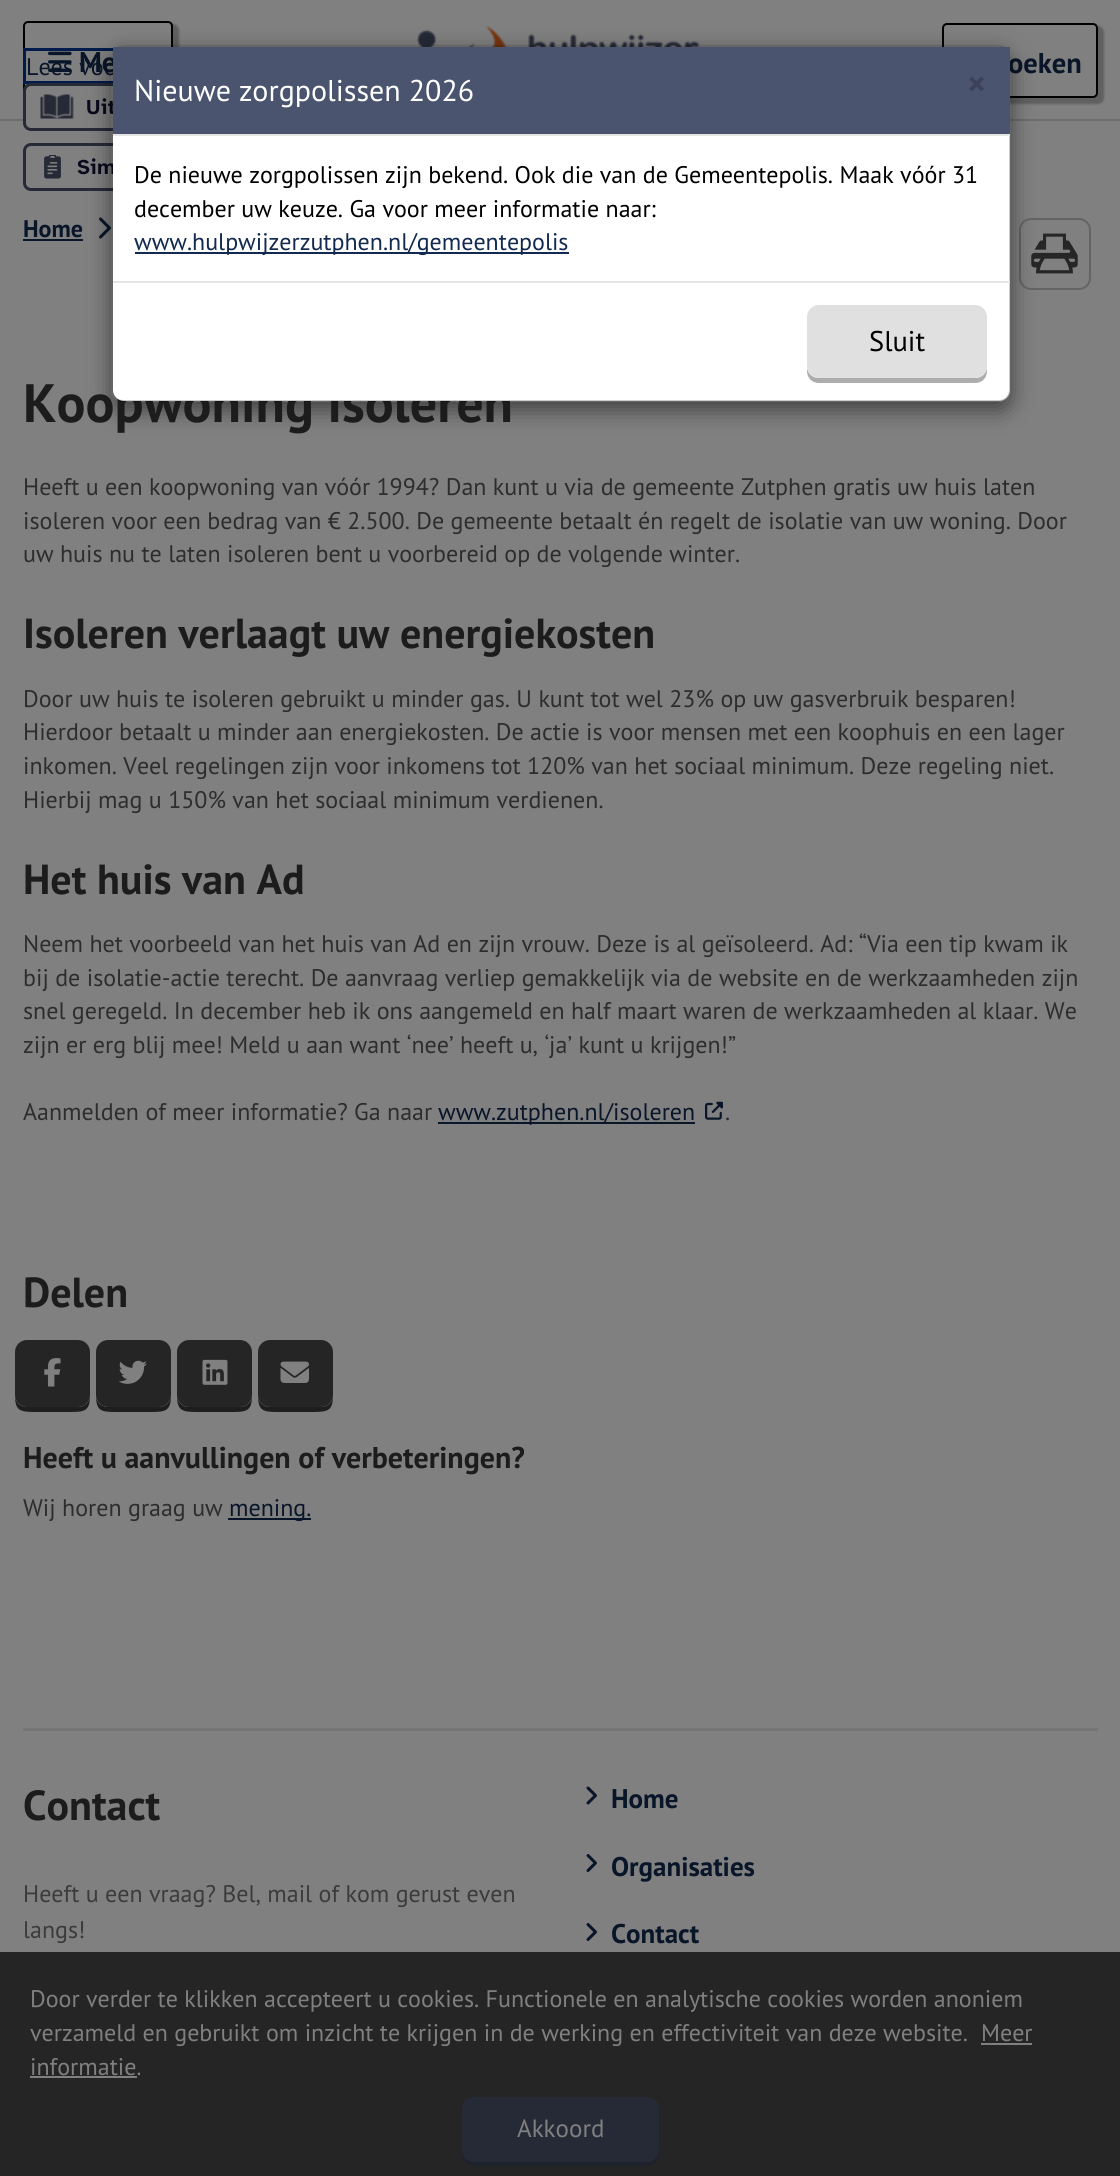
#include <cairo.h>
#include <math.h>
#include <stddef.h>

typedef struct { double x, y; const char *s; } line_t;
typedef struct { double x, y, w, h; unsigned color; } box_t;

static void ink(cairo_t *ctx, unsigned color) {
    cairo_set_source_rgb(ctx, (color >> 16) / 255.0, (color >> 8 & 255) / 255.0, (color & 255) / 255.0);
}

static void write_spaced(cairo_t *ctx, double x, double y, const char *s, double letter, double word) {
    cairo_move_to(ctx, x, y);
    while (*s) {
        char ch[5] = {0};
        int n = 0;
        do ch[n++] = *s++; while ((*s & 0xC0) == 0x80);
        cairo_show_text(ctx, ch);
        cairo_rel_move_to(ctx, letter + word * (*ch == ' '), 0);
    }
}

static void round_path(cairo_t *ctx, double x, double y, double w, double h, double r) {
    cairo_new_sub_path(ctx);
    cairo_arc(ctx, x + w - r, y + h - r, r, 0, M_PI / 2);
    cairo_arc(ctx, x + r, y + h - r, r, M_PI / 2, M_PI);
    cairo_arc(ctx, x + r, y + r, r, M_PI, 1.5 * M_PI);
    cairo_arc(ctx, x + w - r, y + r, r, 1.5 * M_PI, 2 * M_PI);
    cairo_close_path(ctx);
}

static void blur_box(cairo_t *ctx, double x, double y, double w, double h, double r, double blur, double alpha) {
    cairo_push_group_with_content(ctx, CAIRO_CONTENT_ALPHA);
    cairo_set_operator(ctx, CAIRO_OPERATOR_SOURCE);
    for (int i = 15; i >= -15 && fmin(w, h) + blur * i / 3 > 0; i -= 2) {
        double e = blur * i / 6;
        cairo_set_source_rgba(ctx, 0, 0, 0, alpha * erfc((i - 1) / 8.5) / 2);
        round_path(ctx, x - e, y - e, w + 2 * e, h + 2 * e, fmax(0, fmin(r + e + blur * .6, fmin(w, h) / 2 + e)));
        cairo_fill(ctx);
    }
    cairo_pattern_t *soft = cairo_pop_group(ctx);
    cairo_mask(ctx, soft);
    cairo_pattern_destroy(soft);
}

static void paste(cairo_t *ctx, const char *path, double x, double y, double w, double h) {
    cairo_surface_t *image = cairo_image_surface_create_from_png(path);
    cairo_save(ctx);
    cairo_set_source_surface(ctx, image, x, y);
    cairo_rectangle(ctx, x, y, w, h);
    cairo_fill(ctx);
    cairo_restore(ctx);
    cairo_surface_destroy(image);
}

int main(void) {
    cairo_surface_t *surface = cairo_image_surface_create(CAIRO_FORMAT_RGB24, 1120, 2176);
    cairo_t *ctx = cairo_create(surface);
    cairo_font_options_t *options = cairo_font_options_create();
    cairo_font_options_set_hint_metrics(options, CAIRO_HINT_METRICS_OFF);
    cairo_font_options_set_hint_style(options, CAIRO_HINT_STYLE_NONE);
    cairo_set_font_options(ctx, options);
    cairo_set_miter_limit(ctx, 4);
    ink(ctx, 0x808080);
    cairo_paint(ctx);
    ink(ctx, 0x6D6D6D);
    cairo_rectangle(ctx, 0, 119, 1120, 2);
    cairo_fill(ctx);
    paste(ctx, "media/1.png", 416, 25, 284, 22);
    ink(ctx, 0x000000);
    blur_box(ctx, 26, 24, 153, 81, 6, 1, 0.25);
    ink(ctx, 0x808080);
    round_path(ctx, 24, 22, 148, 76, 4);
    cairo_fill_preserve(ctx);
    ink(ctx, 0x000000);
    cairo_stroke(ctx);
    paste(ctx, "media/2.png", 48, 51, 24, 21);
    cairo_select_font_face(ctx, "PT Sans", CAIRO_FONT_SLANT_NORMAL, CAIRO_FONT_WEIGHT_BOLD);
    cairo_set_font_size(ctx, 28.5);
    ink(ctx, 0x091528);
    cairo_move_to(ctx, 79, 72);
    cairo_show_text(ctx, "Me");
    ink(ctx, 0x000000);
    blur_box(ctx, 945, 26, 159, 78, 6, 1, 0.25);
    ink(ctx, 0x808080);
    round_path(ctx, 943, 24, 154, 73, 4);
    cairo_fill_preserve(ctx);
    ink(ctx, 0x000000);
    cairo_stroke(ctx);
    ink(ctx, 0x091528);
    cairo_move_to(ctx, 1008, 73);
    cairo_show_text(ctx, "oeken");
    cairo_select_font_face(ctx, "PT Sans", CAIRO_FONT_SLANT_NORMAL, CAIRO_FONT_WEIGHT_NORMAL);
    cairo_set_font_size(ctx, 24);
    cairo_move_to(ctx, 26, 75);
    cairo_show_text(ctx, "Lees voo");
    {
        static const box_t items[] = {
            {23, 48, 90, 3, 0x011B4C},
            {23, 81, 90, 3, 0x011B4C},
            {23, 48, 3, 36, 0x011B4C},
        };
        for (size_t i = 0; i < sizeof items / sizeof *items; i++) {
            ink(ctx, items[i].color);
            cairo_rectangle(ctx, items[i].x, items[i].y, items[i].w, items[i].h);
            cairo_fill(ctx);
        }
    }
    ink(ctx, 0x808080);
    round_path(ctx, 24.5, 84.5, 234, 45, 6.5);
    cairo_fill_preserve(ctx);
    ink(ctx, 0x262A37);
    cairo_set_line_width(ctx, 3);
    cairo_stroke(ctx);
    paste(ctx, "media/3.png", 40, 94, 34, 25);
    cairo_select_font_face(ctx, "Atkinson Hyperlegible Next", CAIRO_FONT_SLANT_NORMAL, CAIRO_FONT_WEIGHT_BOLD);
    cairo_set_font_size(ctx, 21);
    ink(ctx, 0x08091C);
    write_spaced(ctx, 86, 114, "Uit", 0.5, 0);
    round_path(ctx, 24.5, 144.5, 211, 45, 6.5);
    ink(ctx, 0x262A37);
    cairo_stroke(ctx);
    paste(ctx, "media/4.png", 44, 155, 17, 24);
    ink(ctx, 0x08091C);
    write_spaced(ctx, 77, 174, "Sim", 0.5, 0);
    ink(ctx, 0x091528);
    cairo_rectangle(ctx, 23, 239, 60, 2);
    cairo_fill(ctx);
    paste(ctx, "media/5.png", 99, 217, 12, 22);
    round_path(ctx, 1020, 219, 70, 70, 11);
    ink(ctx, 0x646464);
    cairo_set_line_width(ctx, 2);
    cairo_stroke(ctx);
    paste(ctx, "media/6.png", 1031, 233, 47, 41);
    cairo_save(ctx);
    cairo_set_fill_rule(ctx, CAIRO_FILL_RULE_EVEN_ODD);
    cairo_new_path(ctx);
    cairo_move_to(ctx, 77, 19);
    cairo_line_to(ctx, 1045, 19);
    cairo_line_to(ctx, 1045, 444);
    cairo_line_to(ctx, 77, 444);
    cairo_close_path(ctx);
    cairo_move_to(ctx, 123, 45);
    cairo_line_to(ctx, 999, 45);
    cairo_curve_to(ctx, 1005.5, 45, 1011, 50.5, 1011, 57);
    cairo_line_to(ctx, 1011, 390);
    cairo_curve_to(ctx, 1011, 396.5, 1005.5, 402, 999, 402);
    cairo_line_to(ctx, 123, 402);
    cairo_curve_to(ctx, 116.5, 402, 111, 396.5, 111, 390);
    cairo_line_to(ctx, 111, 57);
    cairo_curve_to(ctx, 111, 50.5, 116.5, 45, 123, 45);
    cairo_close_path(ctx);
    cairo_clip(ctx);
    ink(ctx, 0x000000);
    blur_box(ctx, 111, 53, 900, 357, 12, 11, 0.5);
    cairo_restore(ctx);
    cairo_select_font_face(ctx, "PT Sans", CAIRO_FONT_SLANT_NORMAL, CAIRO_FONT_WEIGHT_BOLD);
    cairo_set_font_size(ctx, 54);
    ink(ctx, 0x1C1C1C);
    cairo_move_to(ctx, 23, 422);
    cairo_show_text(ctx, "Koopwoning isoleren");
    ink(ctx, 0xFFFFFF);
    round_path(ctx, 113, 47, 897, 354, 11);
    cairo_fill(ctx);
    round_path(ctx, 112, 46, 898, 355, 11);
    cairo_set_source_rgba(ctx, 0, 0, 0, 0.2);
    cairo_stroke(ctx);
    ink(ctx, 0x4B546E);
    cairo_rectangle(ctx, 113, 47, 897, 87);
    cairo_fill(ctx);
    ink(ctx, 0xE5E5E5);
    cairo_rectangle(ctx, 113, 134, 897, 2);
    cairo_fill(ctx);
    cairo_select_font_face(ctx, "PT Sans", CAIRO_FONT_SLANT_NORMAL, CAIRO_FONT_WEIGHT_NORMAL);
    cairo_set_font_size(ctx, 30);
    ink(ctx, 0xFFFFFF);
    cairo_move_to(ctx, 134, 101);
    cairo_show_text(ctx, "Nieuwe zorgpolissen 2026");
    cairo_select_font_face(ctx, "PT Sans", CAIRO_FONT_SLANT_NORMAL, CAIRO_FONT_WEIGHT_BOLD);
    cairo_set_font_size(ctx, 36);
    ink(ctx, 0x3C4358);
    cairo_move_to(ctx, 967, 96);
    cairo_show_text(ctx, "×");
    cairo_select_font_face(ctx, "PT Sans", CAIRO_FONT_SLANT_NORMAL, CAIRO_FONT_WEIGHT_NORMAL);
    cairo_set_font_size(ctx, 24);
    ink(ctx, 0x000000);
    cairo_move_to(ctx, 134, 183);
    cairo_show_text(ctx, "De nieuwe zorgpolissen zijn bekend. Ook die van de Gemeentepolis. Maak vóór 31");
    cairo_move_to(ctx, 134, 217);
    cairo_show_text(ctx, "december uw keuze. Ga voor meer informatie naar:");
    ink(ctx, 0x122A4F);
    cairo_rectangle(ctx, 135, 252, 434, 2);
    cairo_fill(ctx);
    cairo_move_to(ctx, 134, 250);
    cairo_show_text(ctx, "www.hulpwijzerzutphen.nl/gemeentepolis");
    ink(ctx, 0xE5E5E5);
    cairo_rectangle(ctx, 113, 281, 897, 2);
    cairo_fill(ctx);
    ink(ctx, 0xADADAD);
    cairo_new_path(ctx);
    cairo_move_to(ctx, 807, 366);
    cairo_line_to(ctx, 807, 371);
    cairo_curve_to(ctx, 807, 378, 812, 383, 819, 383);
    cairo_line_to(ctx, 975, 383);
    cairo_curve_to(ctx, 982, 383, 987, 378, 987, 371);
    cairo_line_to(ctx, 987, 366);
    cairo_curve_to(ctx, 987, 373, 982, 378, 975, 378);
    cairo_line_to(ctx, 819, 378);
    cairo_curve_to(ctx, 812, 378, 807, 373, 807, 366);
    cairo_close_path(ctx);
    cairo_fill(ctx);
    ink(ctx, 0xE0E0E0);
    round_path(ctx, 807, 305, 180, 73, 12);
    cairo_fill(ctx);
    cairo_set_font_size(ctx, 28.5);
    ink(ctx, 0x000000);
    cairo_move_to(ctx, 869, 351);
    cairo_show_text(ctx, "Sluit");
    cairo_select_font_face(ctx, "PT Sans", CAIRO_FONT_SLANT_NORMAL, CAIRO_FONT_WEIGHT_BOLD);
    cairo_set_font_size(ctx, 24);
    ink(ctx, 0x091528);
    cairo_move_to(ctx, 23, 237);
    cairo_show_text(ctx, "Home");
    cairo_select_font_face(ctx, "PT Sans", CAIRO_FONT_SLANT_NORMAL, CAIRO_FONT_WEIGHT_NORMAL);
    ink(ctx, 0x2D2D2D);
    {
        static const line_t items[] = {
            {23, 495, "Heeft u een koopwoning van vóór 1994? Dan kunt u via de gemeente Zutphen gratis uw huis laten"},
            {23, 529, "isoleren voor een bedrag van € 2.500. De gemeente betaalt én regelt de isolatie van uw woning. Door"},
            {23, 562, "uw huis nu te laten isoleren bent u voorbereid op de volgende winter."},
        };
        for (size_t i = 0; i < sizeof items / sizeof *items; i++) {
            cairo_move_to(ctx, items[i].x, items[i].y);
            cairo_show_text(ctx, items[i].s);
        }
    }
    cairo_select_font_face(ctx, "PT Sans", CAIRO_FONT_SLANT_NORMAL, CAIRO_FONT_WEIGHT_BOLD);
    cairo_set_font_size(ctx, 42);
    ink(ctx, 0x1C1C1C);
    cairo_move_to(ctx, 23, 648);
    cairo_show_text(ctx, "Isoleren verlaagt uw energiekosten");
    cairo_select_font_face(ctx, "PT Sans", CAIRO_FONT_SLANT_NORMAL, CAIRO_FONT_WEIGHT_NORMAL);
    cairo_set_font_size(ctx, 24);
    ink(ctx, 0x2D2D2D);
    {
        static const line_t items[] = {
            {23, 707, "Door uw huis te isoleren gebruikt u minder gas. U kunt tot wel 23% op uw gasverbruik besparen!"},
            {23, 740, "Hierdoor betaalt u minder aan energiekosten. De actie is voor mensen met een koophuis en een lager"},
            {23, 774, "inkomen. Veel regelingen zijn voor inkomens tot 120% van het sociaal minimum. Deze regeling niet."},
            {23, 808, "Hierbij mag u 150% van het sociaal minimum verdienen."},
        };
        for (size_t i = 0; i < sizeof items / sizeof *items; i++) {
            cairo_move_to(ctx, items[i].x, items[i].y);
            cairo_show_text(ctx, items[i].s);
        }
    }
    cairo_select_font_face(ctx, "PT Sans", CAIRO_FONT_SLANT_NORMAL, CAIRO_FONT_WEIGHT_BOLD);
    cairo_set_font_size(ctx, 42);
    ink(ctx, 0x1C1C1C);
    cairo_move_to(ctx, 23, 894);
    cairo_show_text(ctx, "Het huis van Ad");
    cairo_select_font_face(ctx, "PT Sans", CAIRO_FONT_SLANT_NORMAL, CAIRO_FONT_WEIGHT_NORMAL);
    cairo_set_font_size(ctx, 24);
    ink(ctx, 0x2D2D2D);
    {
        static const line_t items[] = {
            {23, 952, "Neem het voorbeeld van het huis van Ad en zijn vrouw. Deze is al geïsoleerd. Ad: “Via een tip kwam ik"},
            {23, 986, "bij de isolatie-actie terecht. De aanvraag verliep gemakkelijk via de website en de werkzaamheden zijn"},
            {23, 1019, "snel geregeld. In december heb ik ons aangemeld en half maart waren de werkzaamheden al klaar. We"},
            {23, 1053, "zijn er erg blij mee! Meld u aan want ‘nee’ heeft u, ‘ja’ kunt u krijgen!”"},
            {23, 1120, "Aanmelden of meer informatie? Ga naar"},
        };
        for (size_t i = 0; i < sizeof items / sizeof *items; i++) {
            cairo_move_to(ctx, items[i].x, items[i].y);
            cairo_show_text(ctx, items[i].s);
        }
    }
    ink(ctx, 0x091528);
    cairo_rectangle(ctx, 438, 1122, 257, 2);
    cairo_fill(ctx);
    cairo_move_to(ctx, 438, 1120);
    cairo_show_text(ctx, "www.zutphen.nl/isoleren");
    paste(ctx, "media/7.png", 705, 1101, 18, 19);
    ink(ctx, 0x2D2D2D);
    cairo_move_to(ctx, 725, 1120);
    cairo_show_text(ctx, ".");
    cairo_select_font_face(ctx, "PT Sans", CAIRO_FONT_SLANT_NORMAL, CAIRO_FONT_WEIGHT_BOLD);
    cairo_set_font_size(ctx, 42);
    ink(ctx, 0x1C1C1C);
    cairo_move_to(ctx, 23, 1307);
    cairo_show_text(ctx, "Delen");
    ink(ctx, 0x1E1E1E);
    cairo_new_path(ctx);
    cairo_move_to(ctx, 15, 1395);
    cairo_curve_to(ctx, 15, 1411, 20, 1412, 36, 1412);
    cairo_line_to(ctx, 70, 1412);
    cairo_curve_to(ctx, 85, 1412, 90, 1411, 90, 1395);
    cairo_curve_to(ctx, 90, 1402, 85, 1407, 78, 1407);
    cairo_line_to(ctx, 27, 1407);
    cairo_curve_to(ctx, 20, 1407, 15, 1402, 15, 1395);
    cairo_close_path(ctx);
    cairo_fill(ctx);
    ink(ctx, 0x252525);
    round_path(ctx, 15, 1340, 75, 67, 12);
    cairo_fill(ctx);
    paste(ctx, "media/8.png", 44, 1358, 17, 29);
    ink(ctx, 0x1E1E1E);
    cairo_new_path(ctx);
    cairo_move_to(ctx, 96, 1395);
    cairo_curve_to(ctx, 96, 1411, 101, 1412, 116, 1412);
    cairo_line_to(ctx, 150, 1412);
    cairo_curve_to(ctx, 166, 1412, 171, 1411, 171, 1395);
    cairo_curve_to(ctx, 171, 1402, 166, 1407, 159, 1407);
    cairo_line_to(ctx, 108, 1407);
    cairo_curve_to(ctx, 101, 1407, 96, 1402, 96, 1395);
    cairo_close_path(ctx);
    cairo_fill(ctx);
    ink(ctx, 0x252525);
    round_path(ctx, 96, 1340, 75, 67, 12);
    cairo_fill(ctx);
    paste(ctx, "media/9.png", 118, 1360, 29, 24);
    ink(ctx, 0x1E1E1E);
    cairo_new_path(ctx);
    cairo_move_to(ctx, 177, 1395);
    cairo_curve_to(ctx, 177, 1411, 182, 1412, 198, 1412);
    cairo_line_to(ctx, 232, 1412);
    cairo_curve_to(ctx, 247, 1412, 252, 1411, 252, 1395);
    cairo_curve_to(ctx, 252, 1402, 247, 1407, 240, 1407);
    cairo_line_to(ctx, 189, 1407);
    cairo_curve_to(ctx, 182, 1407, 177, 1402, 177, 1395);
    cairo_close_path(ctx);
    cairo_fill(ctx);
    ink(ctx, 0x252525);
    round_path(ctx, 177, 1340, 75, 67, 12);
    cairo_fill(ctx);
    paste(ctx, "media/10.png", 202, 1359, 26, 26);
    ink(ctx, 0x1E1E1E);
    cairo_new_path(ctx);
    cairo_move_to(ctx, 258, 1395);
    cairo_curve_to(ctx, 258, 1411, 263, 1412, 278, 1412);
    cairo_line_to(ctx, 312, 1412);
    cairo_curve_to(ctx, 328, 1412, 333, 1411, 333, 1395);
    cairo_curve_to(ctx, 333, 1402, 328, 1407, 321, 1407);
    cairo_line_to(ctx, 270, 1407);
    cairo_curve_to(ctx, 263, 1407, 258, 1402, 258, 1395);
    cairo_close_path(ctx);
    cairo_fill(ctx);
    ink(ctx, 0x252525);
    round_path(ctx, 258, 1340, 75, 67, 12);
    cairo_fill(ctx);
    paste(ctx, "media/11.png", 280, 1361, 29, 22);
    cairo_set_font_size(ctx, 30);
    ink(ctx, 0x1C1C1C);
    cairo_move_to(ctx, 23, 1468);
    cairo_show_text(ctx, "Heeft u aanvullingen of verbeteringen?");
    cairo_select_font_face(ctx, "PT Sans", CAIRO_FONT_SLANT_NORMAL, CAIRO_FONT_WEIGHT_NORMAL);
    cairo_set_font_size(ctx, 24);
    ink(ctx, 0x2D2D2D);
    cairo_move_to(ctx, 23, 1516);
    cairo_show_text(ctx, "Wij horen graag uw");
    ink(ctx, 0x091528);
    cairo_rectangle(ctx, 228, 1518, 83, 2);
    cairo_fill(ctx);
    cairo_move_to(ctx, 229, 1516);
    cairo_show_text(ctx, "mening.");
    ink(ctx, 0x737373);
    cairo_rectangle(ctx, 23, 1730, 1075, 1);
    cairo_fill(ctx);
    ink(ctx, 0x777777);
    cairo_rectangle(ctx, 23, 1728, 1075, 2);
    cairo_fill(ctx);
    cairo_select_font_face(ctx, "PT Sans", CAIRO_FONT_SLANT_NORMAL, CAIRO_FONT_WEIGHT_BOLD);
    cairo_set_font_size(ctx, 42);
    ink(ctx, 0x1C1C1C);
    cairo_move_to(ctx, 23, 1820);
    cairo_show_text(ctx, "Contact");
    cairo_select_font_face(ctx, "PT Sans", CAIRO_FONT_SLANT_NORMAL, CAIRO_FONT_WEIGHT_NORMAL);
    cairo_set_font_size(ctx, 24);
    ink(ctx, 0x3B3B3B);
    cairo_move_to(ctx, 23, 1902);
    cairo_show_text(ctx, "Heeft u een vraag? Bel, mail of kom gerust even");
    cairo_move_to(ctx, 23, 1938);
    cairo_show_text(ctx, "langs!");
    paste(ctx, "media/12.png", 586, 1786, 11, 19);
    cairo_select_font_face(ctx, "PT Sans", CAIRO_FONT_SLANT_NORMAL, CAIRO_FONT_WEIGHT_BOLD);
    cairo_set_font_size(ctx, 27);
    ink(ctx, 0x091528);
    cairo_move_to(ctx, 611, 1808);
    cairo_show_text(ctx, "Home");
    paste(ctx, "media/13.png", 586, 1854, 11, 18);
    cairo_move_to(ctx, 611, 1876);
    cairo_show_text(ctx, "Organisaties");
    paste(ctx, "media/13.png", 586, 1923, 11, 18);
    cairo_move_to(ctx, 611, 1943);
    cairo_show_text(ctx, "Contact");
    ink(ctx, 0x252525);
    cairo_rectangle(ctx, 0, 1952, 1120, 224);
    cairo_fill(ctx);
    cairo_select_font_face(ctx, "PT Sans", CAIRO_FONT_SLANT_NORMAL, CAIRO_FONT_WEIGHT_NORMAL);
    cairo_set_font_size(ctx, 24);
    ink(ctx, 0x808080);
    {
        static const line_t items[] = {
            {30, 2007, "Door verder te klikken accepteert u cookies. Functionele en analytische cookies worden anoniem"},
            {30, 2041, "verzameld en gebruikt om inzicht te krijgen in de werking en effectiviteit van deze website."},
            {981, 2041, "Meer"},
        };
        for (size_t i = 0; i < sizeof items / sizeof *items; i++) {
            cairo_move_to(ctx, items[i].x, items[i].y);
            cairo_show_text(ctx, items[i].s);
        }
    }
    cairo_rectangle(ctx, 981, 2043, 51, 2);
    cairo_fill(ctx);
    cairo_move_to(ctx, 30, 2075);
    cairo_show_text(ctx, "informatie.");
    cairo_rectangle(ctx, 30, 2076, 107, 2);
    cairo_fill(ctx);
    ink(ctx, 0x1E222C);
    cairo_new_path(ctx);
    cairo_move_to(ctx, 462, 2150);
    cairo_line_to(ctx, 462, 2154);
    cairo_curve_to(ctx, 462, 2161, 467, 2166, 474, 2166);
    cairo_line_to(ctx, 647, 2166);
    cairo_curve_to(ctx, 654, 2166, 659, 2161, 659, 2154);
    cairo_line_to(ctx, 659, 2114);
    cairo_line_to(ctx, 658, 2111);
    cairo_line_to(ctx, 658, 2150);
    cairo_curve_to(ctx, 658, 2156, 653, 2162, 646, 2162);
    cairo_line_to(ctx, 474, 2162);
    cairo_curve_to(ctx, 467, 2162, 462, 2156, 462, 2150);
    cairo_close_path(ctx);
    cairo_fill(ctx);
    ink(ctx, 0x262A37);
    round_path(ctx, 462, 2097, 197, 65, 12);
    cairo_fill(ctx);
    cairo_set_font_size(ctx, 25);
    ink(ctx, 0x808080);
    cairo_move_to(ctx, 517, 2137);
    cairo_show_text(ctx, "Akkoord");
    cairo_surface_write_to_png(surface, "image.png");
    cairo_font_options_destroy(options);
    cairo_destroy(ctx);
    cairo_surface_destroy(surface);
    return 0;
}
